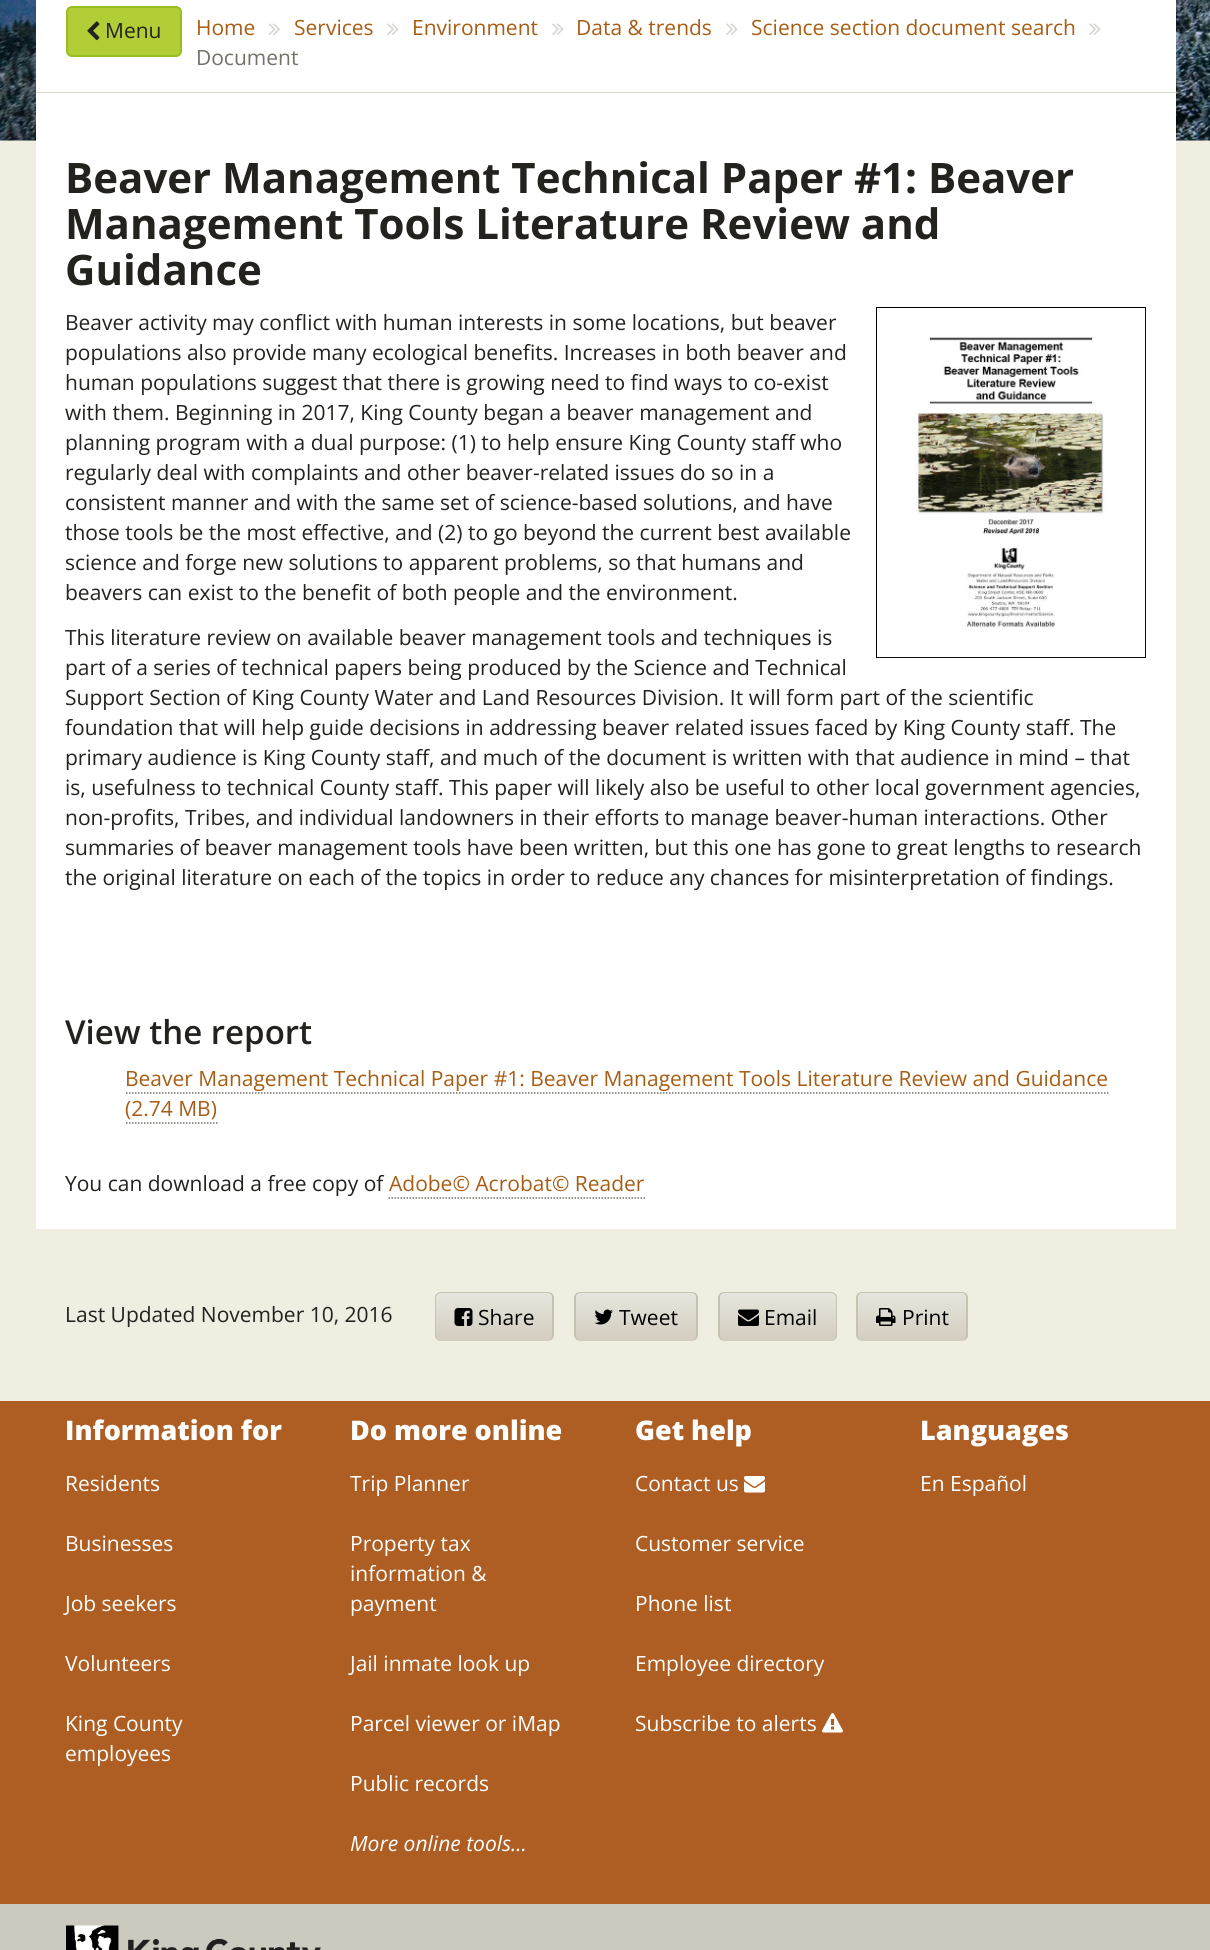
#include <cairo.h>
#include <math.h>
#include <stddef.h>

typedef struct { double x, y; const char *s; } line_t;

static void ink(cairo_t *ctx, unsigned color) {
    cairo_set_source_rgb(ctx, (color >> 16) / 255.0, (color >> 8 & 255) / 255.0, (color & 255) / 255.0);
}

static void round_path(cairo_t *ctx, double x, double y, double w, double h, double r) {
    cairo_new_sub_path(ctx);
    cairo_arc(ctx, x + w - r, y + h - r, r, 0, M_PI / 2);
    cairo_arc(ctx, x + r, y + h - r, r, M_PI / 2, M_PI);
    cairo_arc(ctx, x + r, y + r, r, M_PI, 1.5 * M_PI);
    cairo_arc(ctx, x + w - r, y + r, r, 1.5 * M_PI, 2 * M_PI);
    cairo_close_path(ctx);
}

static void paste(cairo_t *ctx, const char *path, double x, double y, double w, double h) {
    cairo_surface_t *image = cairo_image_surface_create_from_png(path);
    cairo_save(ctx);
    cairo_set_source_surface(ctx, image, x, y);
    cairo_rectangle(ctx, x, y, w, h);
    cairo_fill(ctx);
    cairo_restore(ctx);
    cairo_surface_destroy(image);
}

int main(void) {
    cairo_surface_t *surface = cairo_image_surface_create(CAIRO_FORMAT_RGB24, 1210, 1950);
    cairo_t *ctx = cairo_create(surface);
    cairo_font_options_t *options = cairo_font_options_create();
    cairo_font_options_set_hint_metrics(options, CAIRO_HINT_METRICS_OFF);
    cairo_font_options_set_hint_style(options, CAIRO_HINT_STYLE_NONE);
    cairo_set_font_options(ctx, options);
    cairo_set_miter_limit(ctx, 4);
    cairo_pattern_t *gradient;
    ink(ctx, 0xEFEEE0);
    cairo_paint(ctx);
    paste(ctx, "media/1.png", 0, 0, 1210, 141);
    ink(ctx, 0xFFFFFF);
    cairo_rectangle(ctx, 36, 0, 1140, 92);
    cairo_fill(ctx);
    ink(ctx, 0xDBD8CC);
    cairo_rectangle(ctx, 36, 92, 1140, 1);
    cairo_fill(ctx);
    ink(ctx, 0xB2CE36);
    round_path(ctx, 67, 7, 114, 49, 5);
    cairo_fill_preserve(ctx);
    ink(ctx, 0x96BF1F);
    cairo_stroke(ctx);
    paste(ctx, "media/2.png", 87, 21, 13, 20);
    cairo_select_font_face(ctx, "Open Sans", CAIRO_FONT_SLANT_NORMAL, CAIRO_FONT_WEIGHT_NORMAL);
    cairo_set_font_size(ctx, 21);
    ink(ctx, 0x23221F);
    cairo_move_to(ctx, 105, 38);
    cairo_show_text(ctx, "Menu");
    ink(ctx, 0xA85D14);
    cairo_move_to(ctx, 196, 35);
    cairo_show_text(ctx, "Home");
    paste(ctx, "media/3.png", 268, 23, 12, 12);
    cairo_move_to(ctx, 294, 35);
    cairo_show_text(ctx, "Services");
    paste(ctx, "media/4.png", 387, 23, 12, 12);
    cairo_move_to(ctx, 412, 35);
    cairo_show_text(ctx, "Environment");
    paste(ctx, "media/4.png", 552, 23, 12, 12);
    cairo_move_to(ctx, 576, 35);
    cairo_show_text(ctx, "Data & trends");
    paste(ctx, "media/4.png", 726, 23, 12, 12);
    cairo_move_to(ctx, 751, 35);
    cairo_show_text(ctx, "Science section document search");
    paste(ctx, "media/4.png", 1089, 23, 12, 12);
    ink(ctx, 0x747167);
    cairo_move_to(ctx, 196, 65);
    cairo_show_text(ctx, "Document");
    ink(ctx, 0xFFFFFF);
    cairo_rectangle(ctx, 36, 93, 1140, 1136);
    cairo_fill(ctx);
    cairo_select_font_face(ctx, "Open Sans", CAIRO_FONT_SLANT_NORMAL, CAIRO_FONT_WEIGHT_BOLD);
    cairo_set_font_size(ctx, 42);
    ink(ctx, 0x23221F);
    {
        static const line_t items[] = {
            {65, 193, "Beaver Management Technical Paper #1: Beaver"},
            {65, 239, "Management Tools Literature Review and"},
            {65, 285, "Guidance"},
        };
        for (size_t i = 0; i < sizeof items / sizeof *items; i++) {
            cairo_move_to(ctx, items[i].x, items[i].y);
            cairo_show_text(ctx, items[i].s);
        }
    }
    paste(ctx, "media/5.png", 876, 307, 270, 351);
    cairo_select_font_face(ctx, "Open Sans", CAIRO_FONT_SLANT_NORMAL, CAIRO_FONT_WEIGHT_NORMAL);
    cairo_set_font_size(ctx, 21);
    {
        static const line_t items[] = {
            {65, 330, "Beaver activity may conflict with human interests in some locations, but beaver"},
            {65, 360, "populations also provide many ecological benefits. Increases in both beaver and"},
            {65, 390, "human populations suggest that there is growing need to find ways to co-exist"},
            {65, 420, "with them. Beginning in 2017, King County began a beaver management and"},
            {65, 450, "planning program with a dual purpose: (1) to help ensure King County staff who"},
            {65, 480, "regularly deal with complaints and other beaver-related issues do so in a"},
            {65, 510, "consistent manner and with the same set of science-based solutions, and have"},
            {65, 540, "those tools be the most effective, and (2) to go beyond the current best available"},
            {65, 570, "science and forge new solutions to apparent problems, so that humans and"},
            {65, 600, "beavers can exist to the benefit of both people and the environment."},
            {65, 645, "This literature review on available beaver management tools and techniques is"},
            {65, 675, "part of a series of technical papers being produced by the Science and Technical"},
            {65, 705, "Support Section of King County Water and Land Resources Division. It will form part of the scientific"},
            {65, 735, "foundation that will help guide decisions in addressing beaver related issues faced by King County staff. The"},
            {65, 765, "primary audience is King County staff, and much of the document is written with that audience in mind – that"},
            {65, 795, "is, usefulness to technical County staff. This paper will likely also be useful to other local government agencies,"},
            {65, 825, "non-profits, Tribes, and individual landowners in their efforts to manage beaver-human interactions. Other"},
            {65, 855, "summaries of beaver management tools have been written, but this one has gone to great lengths to research"},
            {65, 885, "the original literature on each of the topics in order to reduce any chances for misinterpretation of findings."},
        };
        for (size_t i = 0; i < sizeof items / sizeof *items; i++) {
            cairo_move_to(ctx, items[i].x, items[i].y);
            cairo_show_text(ctx, items[i].s);
        }
    }
    cairo_select_font_face(ctx, "Open Sans SemiBold", CAIRO_FONT_SLANT_NORMAL, CAIRO_FONT_WEIGHT_NORMAL);
    cairo_set_font_size(ctx, 33);
    cairo_move_to(ctx, 65, 1044);
    cairo_show_text(ctx, "View the report");
    cairo_select_font_face(ctx, "Open Sans", CAIRO_FONT_SLANT_NORMAL, CAIRO_FONT_WEIGHT_NORMAL);
    cairo_set_font_size(ctx, 21);
    ink(ctx, 0xA85D14);
    cairo_move_to(ctx, 125, 1086);
    cairo_show_text(ctx, "Beaver Management Technical Paper #1: Beaver Management Tools Literature Review and Guidance");
    cairo_new_path(ctx);
    cairo_move_to(ctx, 126, 1093);
    cairo_line_to(ctx, 1108.5, 1093);
    ink(ctx, 0x747167);
    cairo_set_line_width(ctx, 1.5);
    cairo_set_dash(ctx, (double[]){1.5, 1.5}, 2, 0);
    cairo_stroke(ctx);
    ink(ctx, 0xA85D14);
    cairo_move_to(ctx, 125, 1116);
    cairo_show_text(ctx, "(2.74 MB)");
    cairo_new_path(ctx);
    cairo_move_to(ctx, 126, 1123);
    cairo_line_to(ctx, 217.5, 1123);
    ink(ctx, 0x747167);
    cairo_stroke(ctx);
    ink(ctx, 0x23221F);
    cairo_move_to(ctx, 65, 1191);
    cairo_show_text(ctx, "You can download a free copy of");
    cairo_new_path(ctx);
    cairo_move_to(ctx, 388.5, 1198);
    cairo_line_to(ctx, 645, 1198);
    ink(ctx, 0x747167);
    cairo_stroke(ctx);
    ink(ctx, 0xA85D14);
    cairo_move_to(ctx, 389, 1191);
    cairo_show_text(ctx, "Adobe© Acrobat© Reader");
    ink(ctx, 0x23221F);
    cairo_move_to(ctx, 65, 1322);
    cairo_show_text(ctx, "Last Updated November 10, 2016");
    cairo_save(ctx);
    round_path(ctx, 435, 1292, 119, 49, 6);
    cairo_clip(ctx);
    gradient = cairo_pattern_create_linear(494, 1293, 494, 1341);
    cairo_pattern_add_color_stop_rgba(gradient, 0, 0.906, 0.898, 0.867, 1);
    cairo_pattern_add_color_stop_rgba(gradient, 1, 0.827, 0.804, 0.749, 1);
    cairo_set_source(ctx, gradient);
    cairo_pattern_destroy(gradient);
    cairo_new_path(ctx);
    cairo_move_to(ctx, 435, 1293);
    cairo_line_to(ctx, 554, 1293);
    cairo_line_to(ctx, 554, 1335);
    cairo_curve_to(ctx, 554, 1338.5, 551.5, 1341, 548, 1341);
    cairo_line_to(ctx, 441, 1341);
    cairo_curve_to(ctx, 437.5, 1341, 435, 1338.5, 435, 1335);
    cairo_close_path(ctx);
    cairo_fill(ctx);
    cairo_restore(ctx);
    ink(ctx, 0xE9E8E0);
    cairo_new_path(ctx);
    cairo_move_to(ctx, 441, 1294);
    cairo_line_to(ctx, 548, 1294);
    cairo_curve_to(ctx, 550, 1294, 552, 1297, 552, 1299);
    cairo_line_to(ctx, 552, 1298);
    cairo_curve_to(ctx, 552, 1295, 550, 1293, 548, 1293);
    cairo_line_to(ctx, 441, 1293);
    cairo_curve_to(ctx, 439, 1293, 437, 1295, 437, 1297);
    cairo_curve_to(ctx, 437, 1296, 440, 1294, 441, 1294);
    cairo_close_path(ctx);
    cairo_fill(ctx);
    ink(ctx, 0xC8C2B0);
    cairo_set_fill_rule(ctx, CAIRO_FILL_RULE_EVEN_ODD);
    cairo_new_path(ctx);
    cairo_move_to(ctx, 441, 1292);
    cairo_line_to(ctx, 548, 1292);
    cairo_curve_to(ctx, 551, 1292, 554, 1294, 554, 1298);
    cairo_line_to(ctx, 554, 1335);
    cairo_curve_to(ctx, 554, 1338, 551, 1341, 548, 1341);
    cairo_line_to(ctx, 441, 1341);
    cairo_curve_to(ctx, 438, 1341, 435, 1338, 435, 1335);
    cairo_line_to(ctx, 435, 1298);
    cairo_curve_to(ctx, 435, 1294, 438, 1292, 441, 1292);
    cairo_close_path(ctx);
    cairo_move_to(ctx, 441, 1293);
    cairo_line_to(ctx, 548, 1293);
    cairo_curve_to(ctx, 550, 1293, 552, 1295, 552, 1298);
    cairo_line_to(ctx, 552, 1335);
    cairo_curve_to(ctx, 552, 1338, 550, 1341, 548, 1341);
    cairo_line_to(ctx, 441, 1341);
    cairo_curve_to(ctx, 439, 1341, 436, 1338, 436, 1335);
    cairo_line_to(ctx, 436, 1298);
    cairo_curve_to(ctx, 436, 1295, 439, 1293, 441, 1293);
    cairo_close_path(ctx);
    cairo_fill(ctx);
    paste(ctx, "media/6.png", 454, 1308, 19, 18);
    ink(ctx, 0x000000);
    cairo_move_to(ctx, 478, 1325);
    cairo_show_text(ctx, "Share");
    cairo_save(ctx);
    cairo_set_fill_rule(ctx, CAIRO_FILL_RULE_WINDING);
    round_path(ctx, 575, 1292, 123, 49, 6);
    cairo_clip(ctx);
    gradient = cairo_pattern_create_linear(636, 1293, 636, 1341);
    cairo_pattern_add_color_stop_rgba(gradient, 0, 0.906, 0.898, 0.867, 1);
    cairo_pattern_add_color_stop_rgba(gradient, 1, 0.827, 0.804, 0.749, 1);
    cairo_set_source(ctx, gradient);
    cairo_pattern_destroy(gradient);
    cairo_new_path(ctx);
    cairo_move_to(ctx, 575, 1293);
    cairo_line_to(ctx, 698, 1293);
    cairo_line_to(ctx, 698, 1335);
    cairo_curve_to(ctx, 698, 1338.5, 695.5, 1341, 692, 1341);
    cairo_line_to(ctx, 581, 1341);
    cairo_curve_to(ctx, 577.5, 1341, 575, 1338.5, 575, 1335);
    cairo_close_path(ctx);
    cairo_fill(ctx);
    cairo_restore(ctx);
    ink(ctx, 0xE9E8E0);
    cairo_set_fill_rule(ctx, CAIRO_FILL_RULE_WINDING);
    cairo_new_path(ctx);
    cairo_move_to(ctx, 580, 1294);
    cairo_line_to(ctx, 692, 1294);
    cairo_curve_to(ctx, 694, 1294, 696, 1297, 696, 1299);
    cairo_line_to(ctx, 696, 1298);
    cairo_curve_to(ctx, 696, 1295, 694, 1293, 692, 1293);
    cairo_line_to(ctx, 580, 1293);
    cairo_curve_to(ctx, 578, 1293, 576, 1295, 576, 1298);
    cairo_line_to(ctx, 576, 1299);
    cairo_curve_to(ctx, 576, 1297, 578, 1294, 580, 1294);
    cairo_close_path(ctx);
    cairo_fill(ctx);
    ink(ctx, 0xC8C2B0);
    cairo_set_fill_rule(ctx, CAIRO_FILL_RULE_EVEN_ODD);
    cairo_new_path(ctx);
    cairo_move_to(ctx, 580, 1292);
    cairo_line_to(ctx, 692, 1292);
    cairo_curve_to(ctx, 695, 1292, 698, 1294, 698, 1298);
    cairo_line_to(ctx, 698, 1335);
    cairo_curve_to(ctx, 698, 1338, 695, 1341, 692, 1341);
    cairo_line_to(ctx, 580, 1341);
    cairo_curve_to(ctx, 577, 1341, 574, 1338, 574, 1335);
    cairo_line_to(ctx, 574, 1298);
    cairo_curve_to(ctx, 574, 1294, 577, 1292, 580, 1292);
    cairo_close_path(ctx);
    cairo_move_to(ctx, 580, 1293);
    cairo_line_to(ctx, 692, 1293);
    cairo_curve_to(ctx, 694, 1293, 696, 1295, 696, 1298);
    cairo_line_to(ctx, 696, 1335);
    cairo_curve_to(ctx, 696, 1338, 694, 1341, 692, 1341);
    cairo_line_to(ctx, 580, 1341);
    cairo_curve_to(ctx, 578, 1341, 576, 1338, 576, 1335);
    cairo_line_to(ctx, 576, 1298);
    cairo_curve_to(ctx, 576, 1295, 578, 1293, 580, 1293);
    cairo_close_path(ctx);
    cairo_fill(ctx);
    paste(ctx, "media/7.png", 594, 1309, 19, 16);
    ink(ctx, 0x000000);
    cairo_move_to(ctx, 619, 1325);
    cairo_show_text(ctx, "Tweet");
    cairo_save(ctx);
    cairo_set_fill_rule(ctx, CAIRO_FILL_RULE_WINDING);
    round_path(ctx, 719, 1292, 118, 49, 6);
    cairo_clip(ctx);
    gradient = cairo_pattern_create_linear(778, 1293, 778, 1341);
    cairo_pattern_add_color_stop_rgba(gradient, 0, 0.906, 0.898, 0.867, 1);
    cairo_pattern_add_color_stop_rgba(gradient, 1, 0.827, 0.804, 0.749, 1);
    cairo_set_source(ctx, gradient);
    cairo_pattern_destroy(gradient);
    cairo_new_path(ctx);
    cairo_move_to(ctx, 719, 1293);
    cairo_line_to(ctx, 837, 1293);
    cairo_line_to(ctx, 837, 1335);
    cairo_curve_to(ctx, 837, 1338.5, 834.5, 1341, 831, 1341);
    cairo_line_to(ctx, 725, 1341);
    cairo_curve_to(ctx, 721.5, 1341, 719, 1338.5, 719, 1335);
    cairo_close_path(ctx);
    cairo_fill(ctx);
    cairo_restore(ctx);
    ink(ctx, 0xE9E8E0);
    cairo_set_fill_rule(ctx, CAIRO_FILL_RULE_WINDING);
    cairo_new_path(ctx);
    cairo_move_to(ctx, 724, 1294);
    cairo_line_to(ctx, 831, 1294);
    cairo_curve_to(ctx, 832, 1294, 835, 1296, 835, 1297);
    cairo_curve_to(ctx, 835, 1295, 833, 1293, 831, 1293);
    cairo_line_to(ctx, 724, 1293);
    cairo_curve_to(ctx, 722, 1293, 720, 1295, 720, 1298);
    cairo_line_to(ctx, 720, 1299);
    cairo_curve_to(ctx, 720, 1297, 722, 1294, 724, 1294);
    cairo_close_path(ctx);
    cairo_fill(ctx);
    ink(ctx, 0xC8C2B0);
    cairo_set_fill_rule(ctx, CAIRO_FILL_RULE_EVEN_ODD);
    cairo_new_path(ctx);
    cairo_move_to(ctx, 724, 1292);
    cairo_line_to(ctx, 831, 1292);
    cairo_curve_to(ctx, 834, 1292, 837, 1294, 837, 1298);
    cairo_line_to(ctx, 837, 1335);
    cairo_curve_to(ctx, 837, 1338, 834, 1341, 831, 1341);
    cairo_line_to(ctx, 724, 1341);
    cairo_curve_to(ctx, 721, 1341, 718, 1338, 718, 1335);
    cairo_line_to(ctx, 718, 1298);
    cairo_curve_to(ctx, 718, 1294, 721, 1292, 724, 1292);
    cairo_close_path(ctx);
    cairo_move_to(ctx, 724, 1293);
    cairo_line_to(ctx, 831, 1293);
    cairo_curve_to(ctx, 833, 1293, 836, 1295, 836, 1298);
    cairo_line_to(ctx, 836, 1335);
    cairo_curve_to(ctx, 836, 1338, 833, 1341, 831, 1341);
    cairo_line_to(ctx, 724, 1341);
    cairo_curve_to(ctx, 722, 1341, 720, 1338, 720, 1335);
    cairo_line_to(ctx, 720, 1298);
    cairo_curve_to(ctx, 720, 1295, 722, 1293, 724, 1293);
    cairo_close_path(ctx);
    cairo_fill(ctx);
    paste(ctx, "media/8.png", 738, 1309, 21, 17);
    ink(ctx, 0x000000);
    cairo_move_to(ctx, 764, 1325);
    cairo_show_text(ctx, "Email");
    cairo_save(ctx);
    cairo_set_fill_rule(ctx, CAIRO_FILL_RULE_WINDING);
    round_path(ctx, 857, 1292, 111, 49, 6);
    cairo_clip(ctx);
    gradient = cairo_pattern_create_linear(912, 1293, 912, 1341);
    cairo_pattern_add_color_stop_rgba(gradient, 0, 0.906, 0.898, 0.867, 1);
    cairo_pattern_add_color_stop_rgba(gradient, 1, 0.827, 0.804, 0.749, 1);
    cairo_set_source(ctx, gradient);
    cairo_pattern_destroy(gradient);
    cairo_new_path(ctx);
    cairo_move_to(ctx, 857, 1293);
    cairo_line_to(ctx, 968, 1293);
    cairo_line_to(ctx, 968, 1335);
    cairo_curve_to(ctx, 968, 1338.5, 965.5, 1341, 962, 1341);
    cairo_line_to(ctx, 863, 1341);
    cairo_curve_to(ctx, 859.5, 1341, 857, 1338.5, 857, 1335);
    cairo_close_path(ctx);
    cairo_fill(ctx);
    cairo_restore(ctx);
    ink(ctx, 0xE9E8E0);
    cairo_set_fill_rule(ctx, CAIRO_FILL_RULE_WINDING);
    cairo_new_path(ctx);
    cairo_move_to(ctx, 862, 1294);
    cairo_line_to(ctx, 962, 1294);
    cairo_curve_to(ctx, 964, 1294, 966, 1297, 966, 1299);
    cairo_line_to(ctx, 966, 1298);
    cairo_curve_to(ctx, 966, 1295, 964, 1293, 962, 1293);
    cairo_line_to(ctx, 862, 1293);
    cairo_curve_to(ctx, 860, 1293, 858, 1295, 858, 1298);
    cairo_line_to(ctx, 858, 1299);
    cairo_curve_to(ctx, 858, 1297, 860, 1294, 862, 1294);
    cairo_close_path(ctx);
    cairo_fill(ctx);
    ink(ctx, 0xC8C2B0);
    cairo_set_fill_rule(ctx, CAIRO_FILL_RULE_EVEN_ODD);
    cairo_new_path(ctx);
    cairo_move_to(ctx, 862, 1292);
    cairo_line_to(ctx, 962, 1292);
    cairo_curve_to(ctx, 965, 1292, 968, 1294, 968, 1298);
    cairo_line_to(ctx, 968, 1335);
    cairo_curve_to(ctx, 968, 1338, 965, 1341, 962, 1341);
    cairo_line_to(ctx, 862, 1341);
    cairo_curve_to(ctx, 859, 1341, 856, 1338, 856, 1335);
    cairo_line_to(ctx, 856, 1298);
    cairo_curve_to(ctx, 856, 1294, 859, 1292, 862, 1292);
    cairo_close_path(ctx);
    cairo_move_to(ctx, 862, 1293);
    cairo_line_to(ctx, 962, 1293);
    cairo_curve_to(ctx, 964, 1293, 966, 1295, 966, 1298);
    cairo_line_to(ctx, 966, 1335);
    cairo_curve_to(ctx, 966, 1338, 964, 1341, 962, 1341);
    cairo_line_to(ctx, 862, 1341);
    cairo_curve_to(ctx, 860, 1341, 858, 1338, 858, 1335);
    cairo_line_to(ctx, 858, 1298);
    cairo_curve_to(ctx, 858, 1295, 860, 1293, 862, 1293);
    cairo_close_path(ctx);
    cairo_fill(ctx);
    paste(ctx, "media/9.png", 876, 1308, 20, 18);
    ink(ctx, 0x000000);
    cairo_move_to(ctx, 902, 1325);
    cairo_show_text(ctx, "Print");
    ink(ctx, 0xAE5E22);
    cairo_rectangle(ctx, 0, 1401, 1210, 503);
    cairo_fill(ctx);
    cairo_select_font_face(ctx, "Open Sans ExtraBold", CAIRO_FONT_SLANT_NORMAL, CAIRO_FONT_WEIGHT_NORMAL);
    cairo_set_font_size(ctx, 27);
    ink(ctx, 0xFFFFFF);
    cairo_move_to(ctx, 65, 1440);
    cairo_show_text(ctx, "Information for");
    cairo_select_font_face(ctx, "Open Sans", CAIRO_FONT_SLANT_NORMAL, CAIRO_FONT_WEIGHT_NORMAL);
    cairo_set_font_size(ctx, 21);
    {
        static const line_t items[] = {
            {65, 1491, "Residents"},
            {65, 1551, "Businesses"},
            {65, 1611, "Job seekers"},
            {65, 1671, "Volunteers"},
            {65, 1731, "King County"},
            {65, 1761, "employees"},
        };
        for (size_t i = 0; i < sizeof items / sizeof *items; i++) {
            cairo_move_to(ctx, items[i].x, items[i].y);
            cairo_show_text(ctx, items[i].s);
        }
    }
    cairo_select_font_face(ctx, "Open Sans ExtraBold", CAIRO_FONT_SLANT_NORMAL, CAIRO_FONT_WEIGHT_NORMAL);
    cairo_set_font_size(ctx, 27);
    cairo_move_to(ctx, 350, 1440);
    cairo_show_text(ctx, "Do more online");
    cairo_select_font_face(ctx, "Open Sans", CAIRO_FONT_SLANT_NORMAL, CAIRO_FONT_WEIGHT_NORMAL);
    cairo_set_font_size(ctx, 21);
    {
        static const line_t items[] = {
            {350, 1491, "Trip Planner"},
            {350, 1551, "Property tax"},
            {350, 1581, "information &"},
            {350, 1611, "payment"},
            {350, 1671, "Jail inmate look up"},
            {350, 1731, "Parcel viewer or iMap"},
            {350, 1791, "Public records"},
        };
        for (size_t i = 0; i < sizeof items / sizeof *items; i++) {
            cairo_move_to(ctx, items[i].x, items[i].y);
            cairo_show_text(ctx, items[i].s);
        }
    }
    cairo_select_font_face(ctx, "Open Sans", CAIRO_FONT_SLANT_ITALIC, CAIRO_FONT_WEIGHT_NORMAL);
    cairo_move_to(ctx, 350, 1851);
    cairo_show_text(ctx, "More online tools...");
    cairo_select_font_face(ctx, "Open Sans ExtraBold", CAIRO_FONT_SLANT_NORMAL, CAIRO_FONT_WEIGHT_NORMAL);
    cairo_set_font_size(ctx, 27);
    cairo_move_to(ctx, 635, 1440);
    cairo_show_text(ctx, "Get help");
    cairo_select_font_face(ctx, "Open Sans", CAIRO_FONT_SLANT_NORMAL, CAIRO_FONT_WEIGHT_NORMAL);
    cairo_set_font_size(ctx, 21);
    cairo_move_to(ctx, 635, 1491);
    cairo_show_text(ctx, "Contact us");
    paste(ctx, "media/10.png", 744, 1476, 21, 17);
    {
        static const line_t items[] = {
            {635, 1551, "Customer service"},
            {635, 1611, "Phone list"},
            {635, 1671, "Employee directory"},
            {635, 1731, "Subscribe to alerts"},
        };
        for (size_t i = 0; i < sizeof items / sizeof *items; i++) {
            cairo_move_to(ctx, items[i].x, items[i].y);
            cairo_show_text(ctx, items[i].s);
        }
    }
    paste(ctx, "media/11.png", 822, 1713, 21, 20);
    cairo_select_font_face(ctx, "Open Sans ExtraBold", CAIRO_FONT_SLANT_NORMAL, CAIRO_FONT_WEIGHT_NORMAL);
    cairo_set_font_size(ctx, 27);
    cairo_move_to(ctx, 920, 1440);
    cairo_show_text(ctx, "Languages");
    cairo_select_font_face(ctx, "Open Sans", CAIRO_FONT_SLANT_NORMAL, CAIRO_FONT_WEIGHT_NORMAL);
    cairo_set_font_size(ctx, 21);
    cairo_move_to(ctx, 920, 1491);
    cairo_show_text(ctx, "En Español");
    ink(ctx, 0xCCCABE);
    cairo_rectangle(ctx, 0, 1904, 1210, 46);
    cairo_fill(ctx);
    paste(ctx, "media/12.png", 66, 1925, 255, 25);
    cairo_surface_write_to_png(surface, "image.png");
    cairo_font_options_destroy(options);
    cairo_destroy(ctx);
    cairo_surface_destroy(surface);
    return 0;
}
